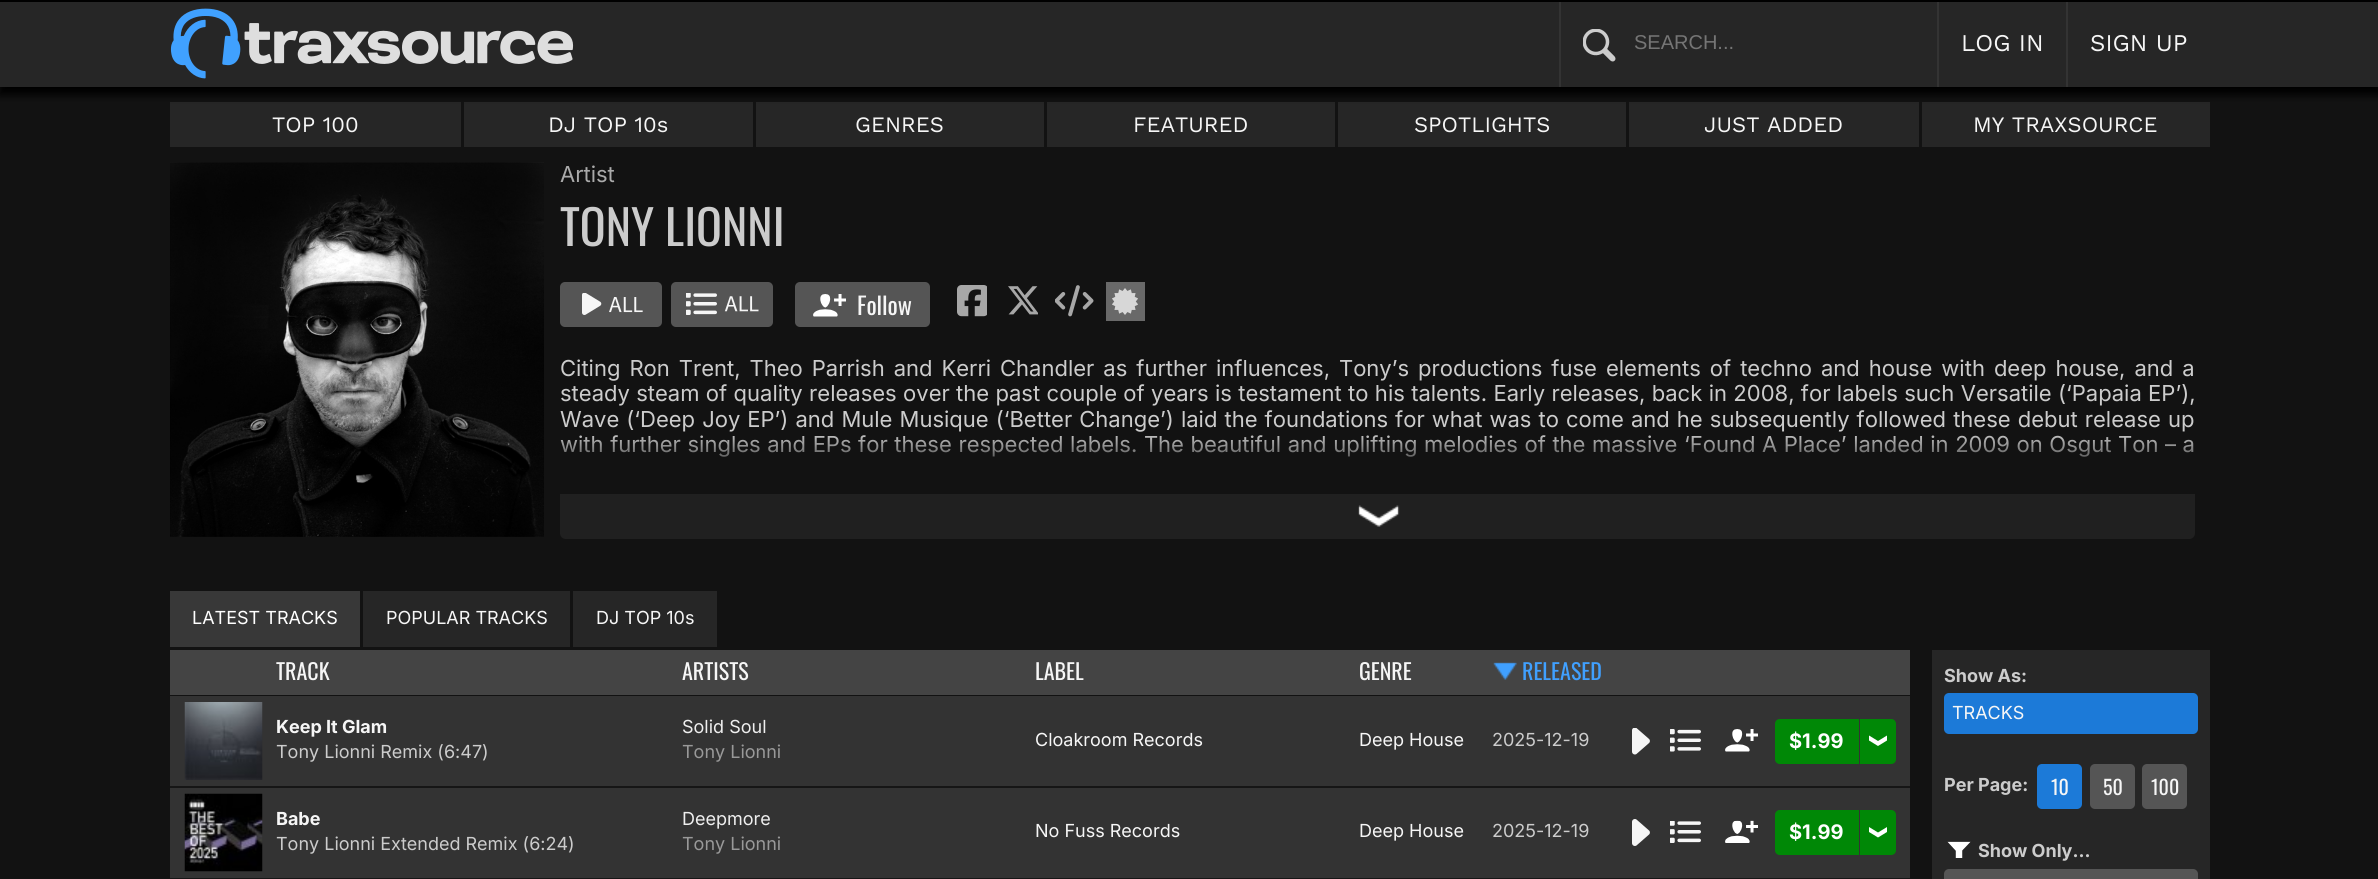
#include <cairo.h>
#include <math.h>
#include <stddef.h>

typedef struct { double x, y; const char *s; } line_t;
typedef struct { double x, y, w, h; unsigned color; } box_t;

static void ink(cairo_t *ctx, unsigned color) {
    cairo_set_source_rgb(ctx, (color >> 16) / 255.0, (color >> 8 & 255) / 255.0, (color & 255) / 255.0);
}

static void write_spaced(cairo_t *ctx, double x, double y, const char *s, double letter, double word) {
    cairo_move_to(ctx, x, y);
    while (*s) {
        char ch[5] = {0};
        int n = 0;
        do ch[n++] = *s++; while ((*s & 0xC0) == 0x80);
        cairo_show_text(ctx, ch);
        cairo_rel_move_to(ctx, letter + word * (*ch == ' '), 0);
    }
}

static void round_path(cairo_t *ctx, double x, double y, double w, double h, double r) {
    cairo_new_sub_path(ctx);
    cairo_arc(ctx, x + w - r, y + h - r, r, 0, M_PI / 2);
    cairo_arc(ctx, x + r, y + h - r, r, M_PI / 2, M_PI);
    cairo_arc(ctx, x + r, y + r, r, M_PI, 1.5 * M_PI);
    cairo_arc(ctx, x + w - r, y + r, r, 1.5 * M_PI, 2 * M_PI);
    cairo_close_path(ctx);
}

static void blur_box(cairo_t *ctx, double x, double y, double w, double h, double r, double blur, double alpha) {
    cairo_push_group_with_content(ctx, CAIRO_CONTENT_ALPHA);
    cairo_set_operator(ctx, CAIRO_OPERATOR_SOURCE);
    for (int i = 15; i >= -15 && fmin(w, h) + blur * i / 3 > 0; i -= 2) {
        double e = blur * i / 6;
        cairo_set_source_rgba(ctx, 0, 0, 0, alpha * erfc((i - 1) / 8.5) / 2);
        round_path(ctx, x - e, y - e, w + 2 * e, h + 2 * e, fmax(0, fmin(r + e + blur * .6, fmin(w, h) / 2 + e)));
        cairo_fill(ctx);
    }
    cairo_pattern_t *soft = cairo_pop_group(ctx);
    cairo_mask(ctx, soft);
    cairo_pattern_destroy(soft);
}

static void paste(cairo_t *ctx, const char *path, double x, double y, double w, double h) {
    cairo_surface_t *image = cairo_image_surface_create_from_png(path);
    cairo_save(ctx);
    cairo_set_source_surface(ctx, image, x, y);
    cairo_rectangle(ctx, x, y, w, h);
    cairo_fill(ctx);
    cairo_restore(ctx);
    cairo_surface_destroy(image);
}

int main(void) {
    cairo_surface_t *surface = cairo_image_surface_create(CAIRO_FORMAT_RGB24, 2378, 879);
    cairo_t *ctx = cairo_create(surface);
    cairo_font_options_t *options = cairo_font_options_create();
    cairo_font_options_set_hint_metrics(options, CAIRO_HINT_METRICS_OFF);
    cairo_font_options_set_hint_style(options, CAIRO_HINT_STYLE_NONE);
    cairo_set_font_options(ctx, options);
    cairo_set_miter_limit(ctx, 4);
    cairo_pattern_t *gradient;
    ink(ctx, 0x121212);
    cairo_paint(ctx);
    {
        static const box_t items[] = {
            {170, 102, 291, 45, 0x262626},
            {464, 102, 289, 45, 0x262626},
            {756, 102, 288, 45, 0x262626},
            {1047, 102, 288, 45, 0x262626},
            {1338, 102, 288, 45, 0x262626},
            {1629, 102, 290, 45, 0x262626},
            {1922, 102, 288, 45, 0x262626},
        };
        for (size_t i = 0; i < sizeof items / sizeof *items; i++) {
            ink(ctx, items[i].color);
            cairo_rectangle(ctx, items[i].x, items[i].y, items[i].w, items[i].h);
            cairo_fill(ctx);
        }
    }
    ink(ctx, 0x000000);
    blur_box(ctx, -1, 5, 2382, 90, 0, 4, 1);
    {
        static const box_t items[] = {
            {0, 2, 2378, 85, 0x262626},
            {1559, 0, 2, 87, 0x333333},
            {1937, 0, 2, 87, 0x333333},
            {2066, 0, 2, 87, 0x333333},
            {0, 0, 2378, 2, 0x000000},
        };
        for (size_t i = 0; i < sizeof items / sizeof *items; i++) {
            ink(ctx, items[i].color);
            cairo_rectangle(ctx, items[i].x, items[i].y, items[i].w, items[i].h);
            cairo_fill(ctx);
        }
    }
    paste(ctx, "media/1.png", 170, 8, 404, 71);
    paste(ctx, "media/2.png", 1583, 29, 33, 33);
    cairo_select_font_face(ctx, "Liberation Sans", CAIRO_FONT_SLANT_NORMAL, CAIRO_FONT_WEIGHT_NORMAL);
    cairo_set_font_size(ctx, 20);
    ink(ctx, 0x757575);
    cairo_move_to(ctx, 1634, 49);
    cairo_show_text(ctx, "SEARCH...");
    cairo_select_font_face(ctx, "Work Sans", CAIRO_FONT_SLANT_NORMAL, CAIRO_FONT_WEIGHT_NORMAL);
    cairo_set_font_size(ctx, 24);
    ink(ctx, 0xF6F6F6);
    cairo_move_to(ctx, 1961, 51);
    cairo_show_text(ctx, "LOG IN");
    cairo_move_to(ctx, 2090, 51);
    cairo_show_text(ctx, "SIGN UP");
    cairo_set_font_size(ctx, 22);
    {
        static const line_t items[] = {
            {272, 132, "TOP 100"},
            {548, 132, "DJ TOP 10s"},
            {855, 132, "GENRES"},
            {1133, 132, "FEATURED"},
            {1414, 132, "SPOTLIGHTS"},
            {1704, 132, "JUST ADDED"},
            {1973, 132, "MY TRAXSOURCE"},
        };
        for (size_t i = 0; i < sizeof items / sizeof *items; i++) {
            cairo_move_to(ctx, items[i].x, items[i].y);
            cairo_show_text(ctx, items[i].s);
        }
    }
    paste(ctx, "media/3.png", 170, 162, 374, 375);
    cairo_select_font_face(ctx, "Inter", CAIRO_FONT_SLANT_NORMAL, CAIRO_FONT_WEIGHT_NORMAL);
    ink(ctx, 0xAAAAAA);
    cairo_move_to(ctx, 560, 182);
    cairo_show_text(ctx, "Artist");
    cairo_select_font_face(ctx, "Oswald", CAIRO_FONT_SLANT_NORMAL, CAIRO_FONT_WEIGHT_NORMAL);
    cairo_set_font_size(ctx, 48);
    ink(ctx, 0xCCCCCC);
    cairo_move_to(ctx, 560, 246);
    cairo_show_text(ctx, "TONY LIONNI");
    ink(ctx, 0x555555);
    round_path(ctx, 560, 282, 102, 45, 5);
    cairo_fill(ctx);
    paste(ctx, "media/4.png", 582, 293, 61, 22);
    round_path(ctx, 671, 282, 102, 45, 5);
    cairo_fill(ctx);
    paste(ctx, "media/5.png", 686, 293, 73, 22);
    round_path(ctx, 795, 282, 135, 45, 5);
    cairo_fill(ctx);
    paste(ctx, "media/6.png", 813, 294, 33, 23);
    cairo_set_font_size(ctx, 24);
    ink(ctx, 0xF6F6F6);
    cairo_move_to(ctx, 857, 315);
    cairo_show_text(ctx, "Follow");
    paste(ctx, "media/7.png", 957, 285, 30, 32);
    paste(ctx, "media/8.png", 1008, 286, 30, 29);
    paste(ctx, "media/9.png", 1055, 285, 39, 32);
    ink(ctx, 0x696969);
    cairo_rectangle(ctx, 1106, 282, 39, 39);
    cairo_fill(ctx);
    paste(ctx, "media/10.png", 1112, 288, 26, 27);
    cairo_select_font_face(ctx, "Inter", CAIRO_FONT_SLANT_NORMAL, CAIRO_FONT_WEIGHT_NORMAL);
    cairo_set_font_size(ctx, 22);
    ink(ctx, 0xCCCCCC);
    write_spaced(ctx, 560, 376, "Citing Ron Trent, Theo Parrish and Kerri Chandler as further influences, Tony’s productions fuse elements of techno and house with deep house, and a", 0, 2.8);
    write_spaced(ctx, 560, 401, "steady steam of quality releases over the past couple of years is testament to his talents. Early releases, back in 2008, for labels such Versatile (‘Papaia EP’),", 0, 0.2);
    write_spaced(ctx, 560, 427, "Wave (‘Deep Joy EP’) and Mule Musique (‘Better Change’) laid the foundations for what was to come and he subsequently followed these debut release up", 0, 0.9);
    write_spaced(ctx, 560, 452, "with further singles and EPs for these respected labels. The beautiful and uplifting melodies of the massive ‘Found A Place’ landed in 2009 on Osgut Ton – a", 0, 0.4);
    gradient = cairo_pattern_create_linear(1377, 482, 1377, 357);
    cairo_pattern_add_color_stop_rgba(gradient, 0.05, 0.071, 0.071, 0.071, 1);
    cairo_pattern_add_color_stop_rgba(gradient, 0.4, 0.071, 0.071, 0.071, 0);
    cairo_set_source(ctx, gradient);
    cairo_pattern_destroy(gradient);
    cairo_rectangle(ctx, 560, 435, 1633, 22);
    cairo_fill(ctx);
    ink(ctx, 0x202020);
    cairo_new_path(ctx);
    cairo_move_to(ctx, 560, 494);
    cairo_line_to(ctx, 2195, 494);
    cairo_line_to(ctx, 2195, 533);
    cairo_curve_to(ctx, 2195, 536.5, 2192.5, 539, 2189, 539);
    cairo_line_to(ctx, 566, 539);
    cairo_curve_to(ctx, 562.5, 539, 560, 536.5, 560, 533);
    cairo_close_path(ctx);
    cairo_fill(ctx);
    paste(ctx, "media/11.png", 1358, 505, 42, 22);
    ink(ctx, 0x383838);
    cairo_rectangle(ctx, 170, 591, 190, 56);
    cairo_fill(ctx);
    cairo_set_font_size(ctx, 18);
    ink(ctx, 0xFFFFFF);
    cairo_move_to(ctx, 192, 624);
    cairo_show_text(ctx, "LATEST TRACKS");
    ink(ctx, 0x262626);
    cairo_rectangle(ctx, 363, 591, 207, 56);
    cairo_fill(ctx);
    ink(ctx, 0xF6F6F6);
    cairo_move_to(ctx, 386, 624);
    cairo_show_text(ctx, "POPULAR TRACKS");
    ink(ctx, 0x262626);
    cairo_rectangle(ctx, 573, 591, 144, 56);
    cairo_fill(ctx);
    ink(ctx, 0xF6F6F6);
    cairo_move_to(ctx, 596, 624);
    cairo_show_text(ctx, "DJ TOP 10s");
    ink(ctx, 0x444444);
    cairo_rectangle(ctx, 170, 650, 1740, 45);
    cairo_fill(ctx);
    cairo_select_font_face(ctx, "Oswald", CAIRO_FONT_SLANT_NORMAL, CAIRO_FONT_WEIGHT_NORMAL);
    cairo_set_font_size(ctx, 22);
    ink(ctx, 0xF6F6F6);
    {
        static const line_t items[] = {
            {276, 680, "TRACK"},
            {682, 680, "ARTISTS"},
            {1035, 680, "LABEL"},
            {1359, 680, "GENRE"},
        };
        for (size_t i = 0; i < sizeof items / sizeof *items; i++) {
            cairo_move_to(ctx, items[i].x, items[i].y);
            cairo_show_text(ctx, items[i].s);
        }
    }
    paste(ctx, "media/12.png", 1493, 662, 24, 18);
    ink(ctx, 0x40A0FF);
    cairo_move_to(ctx, 1522, 680);
    cairo_show_text(ctx, "RELEASED");
    ink(ctx, 0x333333);
    cairo_rectangle(ctx, 170, 696, 1740, 90);
    cairo_fill(ctx);
    ink(ctx, 0x161616);
    cairo_rectangle(ctx, 170, 786, 1740, 2);
    cairo_fill(ctx);
    paste(ctx, "media/13.png", 184, 702, 79, 78);
    cairo_select_font_face(ctx, "Inter", CAIRO_FONT_SLANT_NORMAL, CAIRO_FONT_WEIGHT_BOLD);
    cairo_set_font_size(ctx, 18);
    ink(ctx, 0xF6F6F6);
    cairo_move_to(ctx, 276, 733);
    cairo_show_text(ctx, "Keep It Glam");
    cairo_select_font_face(ctx, "Inter", CAIRO_FONT_SLANT_NORMAL, CAIRO_FONT_WEIGHT_NORMAL);
    ink(ctx, 0xCCCCCC);
    cairo_move_to(ctx, 276, 758);
    cairo_show_text(ctx, "Tony Lionni Remix (6:47)");
    ink(ctx, 0xEEEEEE);
    cairo_move_to(ctx, 682, 733);
    cairo_show_text(ctx, "Solid Soul");
    ink(ctx, 0x999999);
    cairo_move_to(ctx, 682, 758);
    cairo_show_text(ctx, "Tony Lionni");
    ink(ctx, 0xF6F6F6);
    cairo_move_to(ctx, 1035, 746);
    cairo_show_text(ctx, "Cloakroom Records");
    cairo_move_to(ctx, 1359, 746);
    cairo_show_text(ctx, "Deep House");
    ink(ctx, 0xCCCCCC);
    cairo_move_to(ctx, 1492, 746);
    cairo_show_text(ctx, "2025-12-19");
    paste(ctx, "media/14.png", 1632, 728, 18, 27);
    paste(ctx, "media/15.png", 1670, 729, 31, 23);
    paste(ctx, "media/16.png", 1725, 729, 33, 23);
    ink(ctx, 0x008806);
    cairo_new_path(ctx);
    cairo_move_to(ctx, 1780, 719);
    cairo_line_to(ctx, 1859, 719);
    cairo_line_to(ctx, 1859, 764);
    cairo_line_to(ctx, 1780, 764);
    cairo_curve_to(ctx, 1777, 764, 1775, 762, 1775, 759);
    cairo_line_to(ctx, 1775, 724);
    cairo_curve_to(ctx, 1775, 721, 1777, 719, 1780, 719);
    cairo_close_path(ctx);
    cairo_fill(ctx);
    cairo_select_font_face(ctx, "Inter", CAIRO_FONT_SLANT_NORMAL, CAIRO_FONT_WEIGHT_BOLD);
    cairo_set_font_size(ctx, 20);
    ink(ctx, 0xFFFFFF);
    cairo_move_to(ctx, 1789, 748);
    cairo_show_text(ctx, "$1.99");
    ink(ctx, 0x008806);
    cairo_new_path(ctx);
    cairo_move_to(ctx, 1860, 719);
    cairo_line_to(ctx, 1891, 719);
    cairo_curve_to(ctx, 1894, 719, 1896, 721, 1896, 724);
    cairo_line_to(ctx, 1896, 759);
    cairo_curve_to(ctx, 1896, 762, 1894, 764, 1891, 764);
    cairo_line_to(ctx, 1860, 764);
    cairo_close_path(ctx);
    cairo_fill(ctx);
    ink(ctx, 0xFFFFFF);
    cairo_new_path(ctx);
    cairo_move_to(ctx, 1869, 735.5);
    cairo_line_to(ctx, 1869, 740.5);
    cairo_line_to(ctx, 1878, 746);
    cairo_line_to(ctx, 1887, 740.5);
    cairo_line_to(ctx, 1887, 735.5);
    cairo_line_to(ctx, 1878, 741);
    cairo_close_path(ctx);
    cairo_fill(ctx);
    ink(ctx, 0x333333);
    cairo_rectangle(ctx, 170, 788, 1740, 90);
    cairo_fill(ctx);
    ink(ctx, 0x161616);
    cairo_rectangle(ctx, 170, 878, 1740, 1);
    cairo_fill(ctx);
    paste(ctx, "media/17.png", 184, 793, 79, 79);
    cairo_set_font_size(ctx, 18);
    ink(ctx, 0xF6F6F6);
    cairo_move_to(ctx, 276, 825);
    cairo_show_text(ctx, "Babe");
    cairo_select_font_face(ctx, "Inter", CAIRO_FONT_SLANT_NORMAL, CAIRO_FONT_WEIGHT_NORMAL);
    ink(ctx, 0xCCCCCC);
    cairo_move_to(ctx, 276, 850);
    cairo_show_text(ctx, "Tony Lionni Extended Remix (6:24)");
    ink(ctx, 0xEEEEEE);
    cairo_move_to(ctx, 682, 825);
    cairo_show_text(ctx, "Deepmore");
    ink(ctx, 0x999999);
    cairo_move_to(ctx, 682, 850);
    cairo_show_text(ctx, "Tony Lionni");
    ink(ctx, 0xF6F6F6);
    cairo_move_to(ctx, 1035, 837);
    cairo_show_text(ctx, "No Fuss Records");
    cairo_move_to(ctx, 1359, 837);
    cairo_show_text(ctx, "Deep House");
    ink(ctx, 0xCCCCCC);
    cairo_move_to(ctx, 1492, 837);
    cairo_show_text(ctx, "2025-12-19");
    paste(ctx, "media/18.png", 1632, 819, 18, 27);
    paste(ctx, "media/19.png", 1670, 821, 31, 22);
    paste(ctx, "media/20.png", 1725, 820, 33, 23);
    ink(ctx, 0x008806);
    cairo_new_path(ctx);
    cairo_move_to(ctx, 1780, 810);
    cairo_line_to(ctx, 1859, 810);
    cairo_line_to(ctx, 1859, 855);
    cairo_line_to(ctx, 1780, 855);
    cairo_curve_to(ctx, 1777, 855, 1775, 853, 1775, 850);
    cairo_line_to(ctx, 1775, 815);
    cairo_curve_to(ctx, 1775, 812, 1777, 810, 1780, 810);
    cairo_close_path(ctx);
    cairo_fill(ctx);
    cairo_select_font_face(ctx, "Inter", CAIRO_FONT_SLANT_NORMAL, CAIRO_FONT_WEIGHT_BOLD);
    cairo_set_font_size(ctx, 20);
    ink(ctx, 0xFFFFFF);
    cairo_move_to(ctx, 1789, 839);
    cairo_show_text(ctx, "$1.99");
    ink(ctx, 0x008806);
    cairo_new_path(ctx);
    cairo_move_to(ctx, 1860, 810);
    cairo_line_to(ctx, 1891, 810);
    cairo_curve_to(ctx, 1894, 810, 1896, 812, 1896, 815);
    cairo_line_to(ctx, 1896, 850);
    cairo_curve_to(ctx, 1896, 853, 1894, 855, 1891, 855);
    cairo_line_to(ctx, 1860, 855);
    cairo_close_path(ctx);
    cairo_fill(ctx);
    ink(ctx, 0xFFFFFF);
    cairo_new_path(ctx);
    cairo_move_to(ctx, 1869, 827);
    cairo_line_to(ctx, 1869, 832);
    cairo_line_to(ctx, 1878, 837.5);
    cairo_line_to(ctx, 1887, 832);
    cairo_line_to(ctx, 1887, 827);
    cairo_line_to(ctx, 1878, 832.5);
    cairo_close_path(ctx);
    cairo_fill(ctx);
    ink(ctx, 0x262626);
    cairo_rectangle(ctx, 1932, 650, 278, 229);
    cairo_fill(ctx);
    cairo_set_font_size(ctx, 18);
    ink(ctx, 0xCCCCCC);
    cairo_move_to(ctx, 1944, 682);
    cairo_show_text(ctx, "Show As:");
    ink(ctx, 0x1C7AD8);
    round_path(ctx, 1944, 693, 254, 41, 5);
    cairo_fill(ctx);
    cairo_select_font_face(ctx, "Inter", CAIRO_FONT_SLANT_NORMAL, CAIRO_FONT_WEIGHT_NORMAL);
    ink(ctx, 0xF6F6F6);
    cairo_move_to(ctx, 1952, 719);
    cairo_show_text(ctx, "TRACKS");
    cairo_select_font_face(ctx, "Inter", CAIRO_FONT_SLANT_NORMAL, CAIRO_FONT_WEIGHT_BOLD);
    ink(ctx, 0xCCCCCC);
    cairo_move_to(ctx, 1944, 791);
    cairo_show_text(ctx, "Per Page:");
    ink(ctx, 0x1C7AD8);
    round_path(ctx, 2037, 764, 45, 45, 5);
    cairo_fill(ctx);
    cairo_select_font_face(ctx, "Oswald", CAIRO_FONT_SLANT_NORMAL, CAIRO_FONT_WEIGHT_NORMAL);
    cairo_set_font_size(ctx, 20);
    ink(ctx, 0xF6F6F6);
    cairo_move_to(ctx, 2051, 795);
    cairo_show_text(ctx, "10");
    ink(ctx, 0x555555);
    round_path(ctx, 2090, 764, 45, 45, 5);
    cairo_fill(ctx);
    ink(ctx, 0xF6F6F6);
    cairo_move_to(ctx, 2103, 795);
    cairo_show_text(ctx, "50");
    ink(ctx, 0x555555);
    round_path(ctx, 2142, 764, 45, 45, 5);
    cairo_fill(ctx);
    ink(ctx, 0xF6F6F6);
    cairo_move_to(ctx, 2151, 795);
    cairo_show_text(ctx, "100");
    paste(ctx, "media/21.png", 1947, 841, 24, 17);
    cairo_select_font_face(ctx, "Inter", CAIRO_FONT_SLANT_NORMAL, CAIRO_FONT_WEIGHT_BOLD);
    cairo_set_font_size(ctx, 18);
    ink(ctx, 0xCCCCCC);
    cairo_move_to(ctx, 1978, 857);
    cairo_show_text(ctx, "Show Only...");
    ink(ctx, 0x555555);
    round_path(ctx, 1944, 869, 254, 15, 5);
    cairo_fill(ctx);
    cairo_surface_write_to_png(surface, "image.png");
    cairo_font_options_destroy(options);
    cairo_destroy(ctx);
    cairo_surface_destroy(surface);
    return 0;
}
